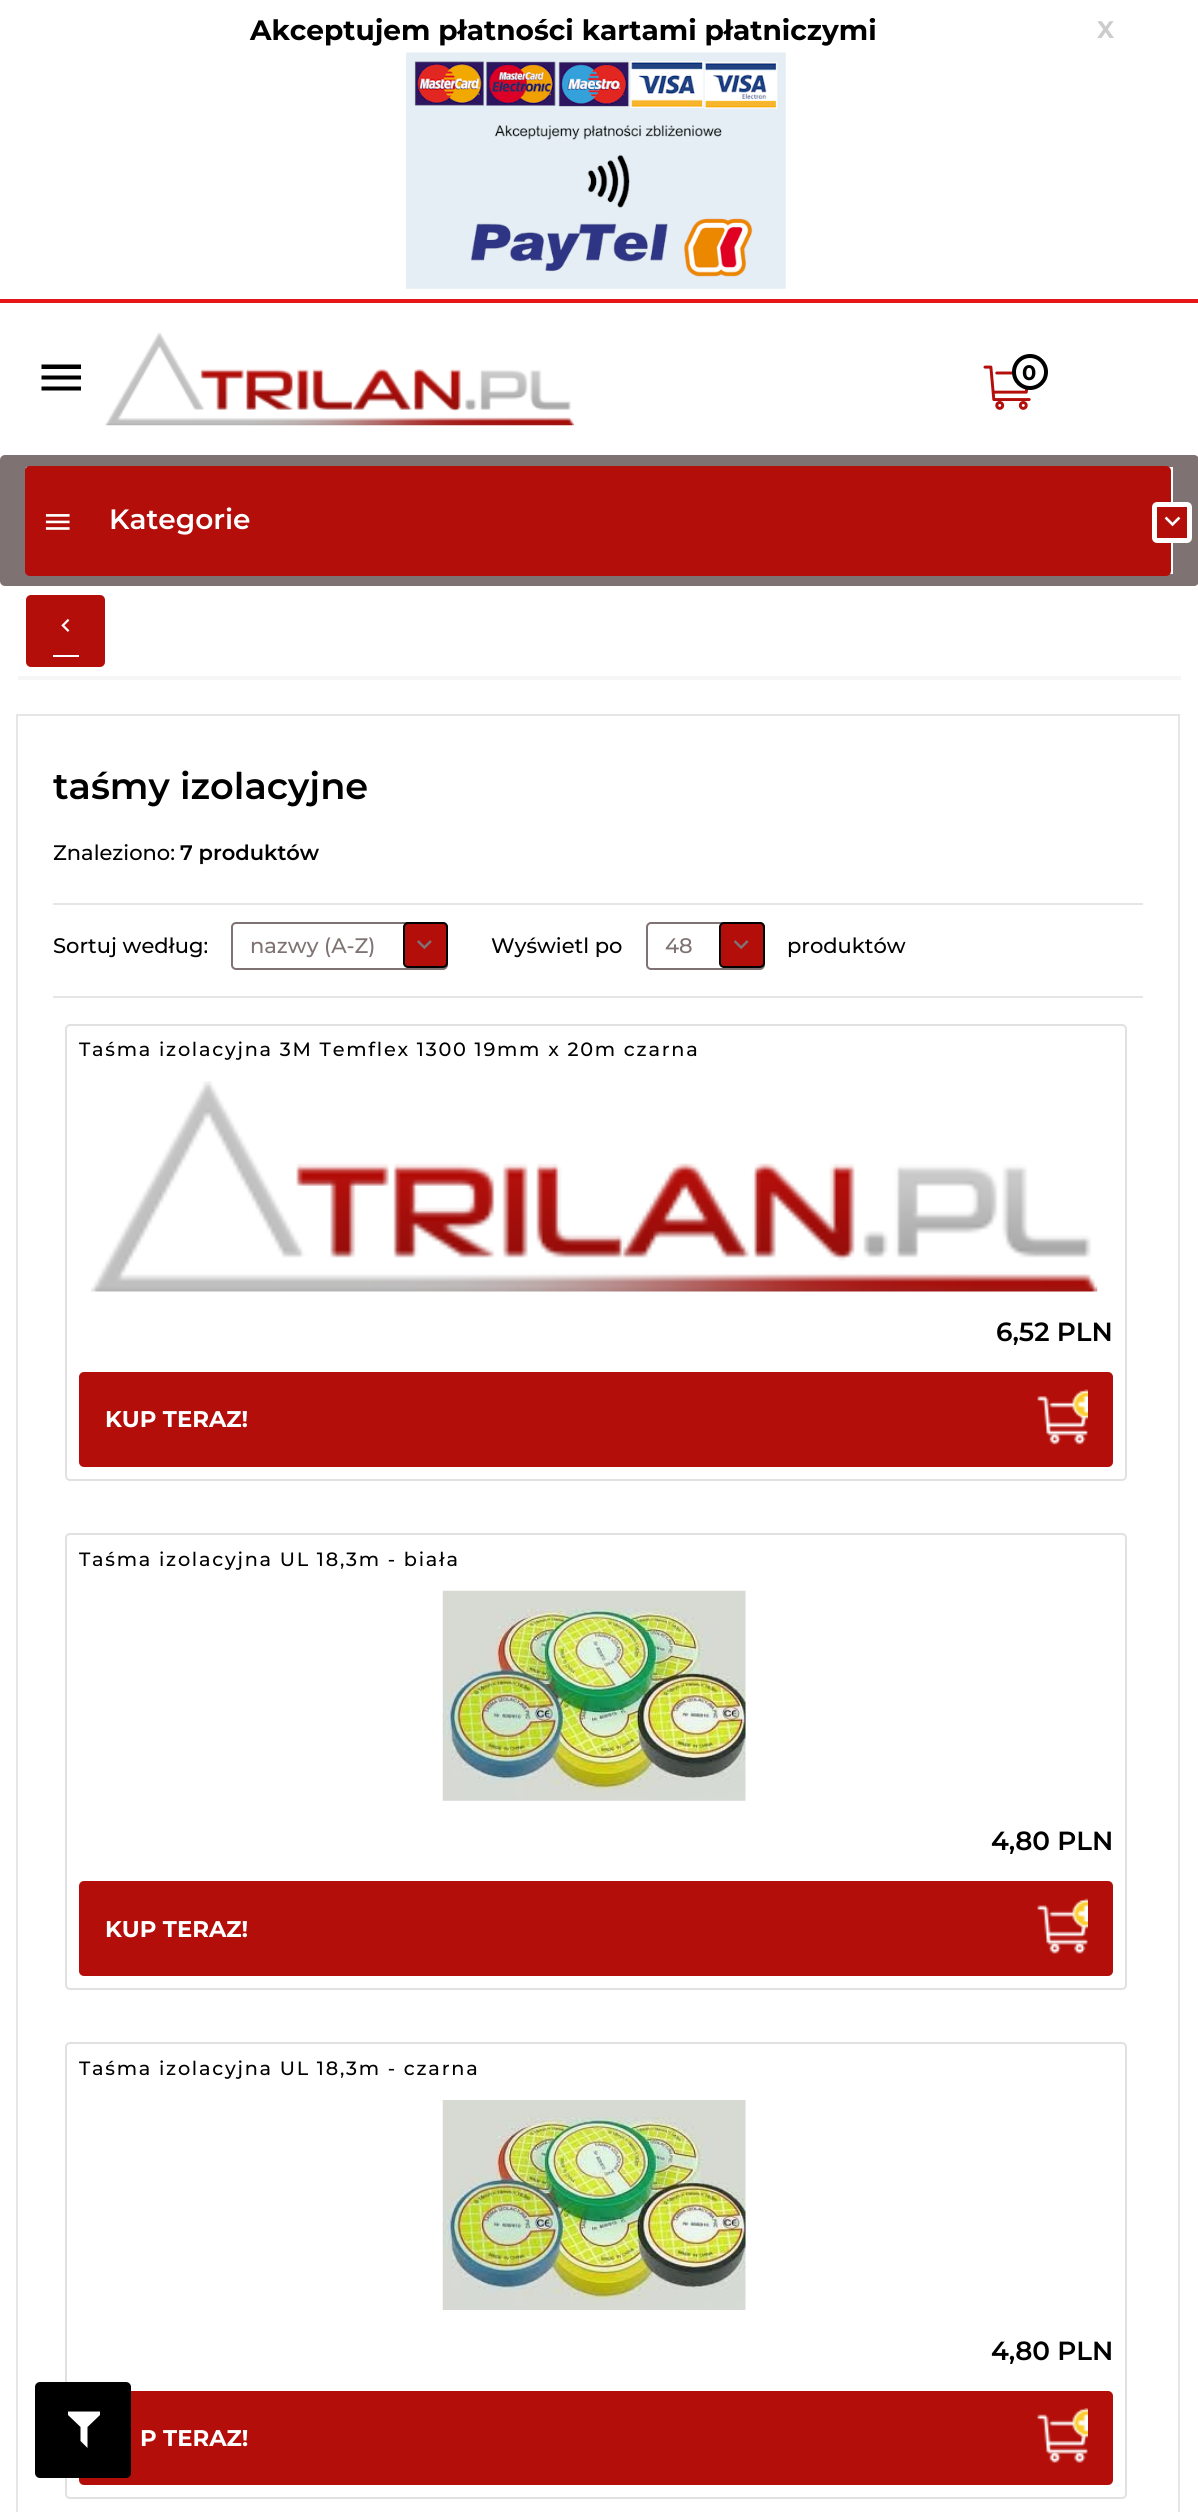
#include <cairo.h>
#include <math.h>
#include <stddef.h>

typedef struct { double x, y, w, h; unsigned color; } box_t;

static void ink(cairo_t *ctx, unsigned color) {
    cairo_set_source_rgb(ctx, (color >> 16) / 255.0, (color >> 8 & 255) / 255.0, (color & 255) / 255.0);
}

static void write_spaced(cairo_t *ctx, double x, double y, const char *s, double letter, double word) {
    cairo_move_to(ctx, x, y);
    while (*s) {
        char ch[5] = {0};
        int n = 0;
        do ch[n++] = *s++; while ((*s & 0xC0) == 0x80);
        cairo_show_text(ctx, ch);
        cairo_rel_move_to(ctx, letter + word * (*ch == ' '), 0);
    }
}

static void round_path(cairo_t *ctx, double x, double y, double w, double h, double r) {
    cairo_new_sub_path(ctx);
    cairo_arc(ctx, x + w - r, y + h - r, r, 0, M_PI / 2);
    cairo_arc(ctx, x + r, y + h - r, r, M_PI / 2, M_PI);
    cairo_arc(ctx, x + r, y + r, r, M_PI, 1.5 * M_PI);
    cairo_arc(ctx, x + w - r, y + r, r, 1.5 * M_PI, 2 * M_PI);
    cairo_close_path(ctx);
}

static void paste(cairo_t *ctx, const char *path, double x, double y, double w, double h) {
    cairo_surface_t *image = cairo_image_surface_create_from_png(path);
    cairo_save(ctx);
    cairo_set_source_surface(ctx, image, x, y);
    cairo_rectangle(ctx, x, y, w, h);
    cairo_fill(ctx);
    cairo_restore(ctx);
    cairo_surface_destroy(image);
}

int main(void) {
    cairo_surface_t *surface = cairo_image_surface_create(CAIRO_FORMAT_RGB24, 1198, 2512);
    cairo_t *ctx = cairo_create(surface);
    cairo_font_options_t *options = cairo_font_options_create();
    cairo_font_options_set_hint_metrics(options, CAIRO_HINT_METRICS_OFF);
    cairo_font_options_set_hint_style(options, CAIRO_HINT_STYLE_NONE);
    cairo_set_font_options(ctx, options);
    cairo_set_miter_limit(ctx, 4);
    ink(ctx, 0xFFFFFF);
    cairo_paint(ctx);
    ink(ctx, 0xE61717);
    cairo_rectangle(ctx, 0, 299, 1198, 4);
    cairo_fill(ctx);
    cairo_select_font_face(ctx, "Montserrat", CAIRO_FONT_SLANT_NORMAL, CAIRO_FONT_WEIGHT_BOLD);
    cairo_set_font_size(ctx, 28);
    ink(ctx, 0x000000);
    cairo_move_to(ctx, 250, 40);
    cairo_show_text(ctx, "Akceptujem płatności kartami płatniczymi");
    paste(ctx, "media/1.png", 406, 52, 380, 237);
    cairo_set_font_size(ctx, 24);
    ink(ctx, 0xCCCCCC);
    cairo_move_to(ctx, 1097, 38);
    cairo_show_text(ctx, "X");
    ink(ctx, 0x000000);
    cairo_new_path(ctx);
    cairo_move_to(ctx, 41.5, 364.5);
    cairo_line_to(ctx, 81, 364.5);
    cairo_line_to(ctx, 81, 369);
    cairo_line_to(ctx, 41.5, 369);
    cairo_close_path(ctx);
    cairo_move_to(ctx, 41.5, 375.5);
    cairo_line_to(ctx, 81, 375.5);
    cairo_line_to(ctx, 81, 379.5);
    cairo_line_to(ctx, 41.5, 379.5);
    cairo_close_path(ctx);
    cairo_move_to(ctx, 41.5, 386.5);
    cairo_line_to(ctx, 81, 386.5);
    cairo_line_to(ctx, 81, 390.5);
    cairo_line_to(ctx, 41.5, 390.5);
    cairo_close_path(ctx);
    cairo_fill(ctx);
    paste(ctx, "media/2.png", 105, 332, 469, 94);
    paste(ctx, "media/3.png", 983, 365, 48, 45);
    ink(ctx, 0xFFFFFF);
    cairo_arc(ctx, 1030, 372, 16, 0, 2 * M_PI);
    cairo_fill_preserve(ctx);
    ink(ctx, 0x000000);
    cairo_set_line_width(ctx, 4);
    cairo_stroke(ctx);
    cairo_set_font_size(ctx, 21);
    cairo_move_to(ctx, 1022, 380);
    cairo_show_text(ctx, "0");
    ink(ctx, 0x7F7272);
    round_path(ctx, 0, 455, 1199, 131, 5);
    cairo_fill(ctx);
    ink(ctx, 0xFFFFFF);
    cairo_rectangle(ctx, 26, 467, 1147, 107);
    cairo_fill(ctx);
    ink(ctx, 0xB30E0A);
    round_path(ctx, 25, 466, 1146, 110, 5);
    cairo_fill(ctx);
    paste(ctx, "media/4.png", 45, 514, 25, 16);
    cairo_select_font_face(ctx, "Montserrat SemiBold", CAIRO_FONT_SLANT_NORMAL, CAIRO_FONT_WEIGHT_NORMAL);
    cairo_set_font_size(ctx, 28);
    ink(ctx, 0xFFFFFF);
    cairo_move_to(ctx, 109, 529);
    cairo_show_text(ctx, "Kategorie");
    ink(ctx, 0xB30E0A);
    round_path(ctx, 1154.5, 504.5, 35, 36, 2.5);
    cairo_fill_preserve(ctx);
    ink(ctx, 0xFFFFFF);
    cairo_set_line_width(ctx, 5);
    cairo_stroke(ctx);
    paste(ctx, "media/5.png", 1164, 516, 17, 11);
    ink(ctx, 0xF6F6F6);
    cairo_rectangle(ctx, 18, 676, 1163, 4);
    cairo_fill(ctx);
    ink(ctx, 0xB30E0A);
    round_path(ctx, 26, 595, 79, 72, 5);
    cairo_fill(ctx);
    ink(ctx, 0xFFFFFF);
    cairo_rectangle(ctx, 53, 655, 26, 2);
    cairo_fill(ctx);
    paste(ctx, "media/6.png", 61, 618, 9, 14);
    {
        static const box_t items[] = {
            {16, 714, 1164, 2, 0xE6E6E6},
            {1178, 714, 2, 1798, 0xE6E6E6},
            {16, 714, 2, 1798, 0xE6E6E6},
        };
        for (size_t i = 0; i < sizeof items / sizeof *items; i++) {
            ink(ctx, items[i].color);
            cairo_rectangle(ctx, items[i].x, items[i].y, items[i].w, items[i].h);
            cairo_fill(ctx);
        }
    }
    cairo_set_font_size(ctx, 36.75);
    ink(ctx, 0x000000);
    cairo_move_to(ctx, 53, 799);
    cairo_show_text(ctx, "taśmy izolacyjne");
    cairo_select_font_face(ctx, "Montserrat Medium", CAIRO_FONT_SLANT_NORMAL, CAIRO_FONT_WEIGHT_NORMAL);
    cairo_set_font_size(ctx, 21);
    cairo_move_to(ctx, 53, 860);
    cairo_show_text(ctx, "Znaleziono:");
    cairo_select_font_face(ctx, "Montserrat SemiBold", CAIRO_FONT_SLANT_NORMAL, CAIRO_FONT_WEIGHT_NORMAL);
    cairo_move_to(ctx, 180, 860);
    cairo_show_text(ctx, "7 produktów");
    ink(ctx, 0xE6E6E6);
    cairo_rectangle(ctx, 53, 903, 1090, 2);
    cairo_fill(ctx);
    cairo_rectangle(ctx, 53, 996, 1090, 2);
    cairo_fill(ctx);
    cairo_select_font_face(ctx, "Montserrat Medium", CAIRO_FONT_SLANT_NORMAL, CAIRO_FONT_WEIGHT_NORMAL);
    ink(ctx, 0x000000);
    cairo_move_to(ctx, 53, 953);
    cairo_show_text(ctx, "Sortuj według:");
    round_path(ctx, 232, 923, 215, 46, 4);
    ink(ctx, 0x7F7272);
    cairo_set_line_width(ctx, 2);
    cairo_stroke(ctx);
    cairo_move_to(ctx, 250, 953);
    cairo_show_text(ctx, "nazwy (A-Z)");
    ink(ctx, 0xB30E0A);
    round_path(ctx, 404, 923, 43, 44, 4);
    cairo_fill_preserve(ctx);
    ink(ctx, 0x000000);
    cairo_stroke(ctx);
    paste(ctx, "media/7.png", 417, 940, 15, 10);
    cairo_move_to(ctx, 491, 953);
    cairo_show_text(ctx, "Wyświetl po");
    round_path(ctx, 647, 923, 117, 46, 4);
    ink(ctx, 0x7F7272);
    cairo_stroke(ctx);
    cairo_move_to(ctx, 665, 953);
    cairo_show_text(ctx, "48");
    ink(ctx, 0xB30E0A);
    round_path(ctx, 720, 923, 44, 44, 4);
    cairo_fill_preserve(ctx);
    ink(ctx, 0x000000);
    cairo_stroke(ctx);
    paste(ctx, "media/8.png", 733, 940, 16, 10);
    cairo_move_to(ctx, 787, 953);
    cairo_show_text(ctx, "produktów");
    round_path(ctx, 66, 1025, 1060, 455, 4);
    ink(ctx, 0xE1E1E1);
    cairo_stroke(ctx);
    cairo_set_font_size(ctx, 19.25);
    ink(ctx, 0x000000);
    write_spaced(ctx, 79, 1056, "Taśma izolacyjna 3M Temflex 1300 19mm x 20m czarna", 1.75, 0);
    paste(ctx, "media/9.png", 91, 1081, 1007, 211);
    cairo_select_font_face(ctx, "Montserrat SemiBold", CAIRO_FONT_SLANT_NORMAL, CAIRO_FONT_WEIGHT_NORMAL);
    cairo_set_font_size(ctx, 26.25);
    cairo_move_to(ctx, 996, 1341);
    cairo_show_text(ctx, "6,52 PLN");
    ink(ctx, 0xB30E0A);
    round_path(ctx, 79, 1372, 1034, 95, 5);
    cairo_fill(ctx);
    cairo_select_font_face(ctx, "Montserrat", CAIRO_FONT_SLANT_NORMAL, CAIRO_FONT_WEIGHT_BOLD);
    cairo_set_font_size(ctx, 22.75);
    ink(ctx, 0xFFFFFF);
    cairo_move_to(ctx, 105, 1427);
    cairo_show_text(ctx, "KUP TERAZ!");
    paste(ctx, "media/10.png", 1037, 1389, 51, 56);
    round_path(ctx, 66, 1534, 1060, 455, 4);
    ink(ctx, 0xE1E1E1);
    cairo_stroke(ctx);
    cairo_select_font_face(ctx, "Montserrat Medium", CAIRO_FONT_SLANT_NORMAL, CAIRO_FONT_WEIGHT_NORMAL);
    cairo_set_font_size(ctx, 19.25);
    ink(ctx, 0x000000);
    write_spaced(ctx, 79, 1566, "Taśma izolacyjna UL 18,3m - biała", 1.75, 0);
    paste(ctx, "media/11.png", 442, 1590, 304, 211);
    cairo_select_font_face(ctx, "Montserrat SemiBold", CAIRO_FONT_SLANT_NORMAL, CAIRO_FONT_WEIGHT_NORMAL);
    cairo_set_font_size(ctx, 26.25);
    cairo_move_to(ctx, 991, 1850);
    cairo_show_text(ctx, "4,80 PLN");
    ink(ctx, 0xB30E0A);
    round_path(ctx, 79, 1881, 1034, 95, 5);
    cairo_fill(ctx);
    cairo_select_font_face(ctx, "Montserrat", CAIRO_FONT_SLANT_NORMAL, CAIRO_FONT_WEIGHT_BOLD);
    cairo_set_font_size(ctx, 22.75);
    ink(ctx, 0xFFFFFF);
    cairo_move_to(ctx, 105, 1937);
    cairo_show_text(ctx, "KUP TERAZ!");
    paste(ctx, "media/12.png", 1037, 1898, 51, 56);
    round_path(ctx, 66, 2043, 1060, 455, 4);
    ink(ctx, 0xE1E1E1);
    cairo_stroke(ctx);
    cairo_select_font_face(ctx, "Montserrat Medium", CAIRO_FONT_SLANT_NORMAL, CAIRO_FONT_WEIGHT_NORMAL);
    cairo_set_font_size(ctx, 19.25);
    ink(ctx, 0x000000);
    write_spaced(ctx, 79, 2075, "Taśma izolacyjna UL 18,3m - czarna", 1.75, 0);
    paste(ctx, "media/13.png", 442, 2100, 304, 210);
    cairo_select_font_face(ctx, "Montserrat SemiBold", CAIRO_FONT_SLANT_NORMAL, CAIRO_FONT_WEIGHT_NORMAL);
    cairo_set_font_size(ctx, 26.25);
    cairo_move_to(ctx, 991, 2360);
    cairo_show_text(ctx, "4,80 PLN");
    ink(ctx, 0xB30E0A);
    round_path(ctx, 79, 2391, 1034, 94, 5);
    cairo_fill(ctx);
    cairo_select_font_face(ctx, "Montserrat", CAIRO_FONT_SLANT_NORMAL, CAIRO_FONT_WEIGHT_BOLD);
    cairo_set_font_size(ctx, 22.75);
    ink(ctx, 0xFFFFFF);
    cairo_move_to(ctx, 140, 2446);
    cairo_show_text(ctx, "P TERAZ!");
    paste(ctx, "media/14.png", 1037, 2408, 51, 55);
    ink(ctx, 0x000000);
    round_path(ctx, 35, 2382, 96, 96, 5);
    cairo_fill(ctx);
    ink(ctx, 0xFFFFFF);
    cairo_new_path(ctx);
    cairo_move_to(ctx, 68, 2411.5);
    cairo_line_to(ctx, 100, 2411.5);
    cairo_line_to(ctx, 100, 2415);
    cairo_line_to(ctx, 87.5, 2427);
    cairo_line_to(ctx, 87.5, 2448);
    cairo_line_to(ctx, 80.5, 2441);
    cairo_line_to(ctx, 80.5, 2427);
    cairo_line_to(ctx, 68, 2415);
    cairo_close_path(ctx);
    cairo_fill(ctx);
    cairo_surface_write_to_png(surface, "image.png");
    cairo_font_options_destroy(options);
    cairo_destroy(ctx);
    cairo_surface_destroy(surface);
    return 0;
}
